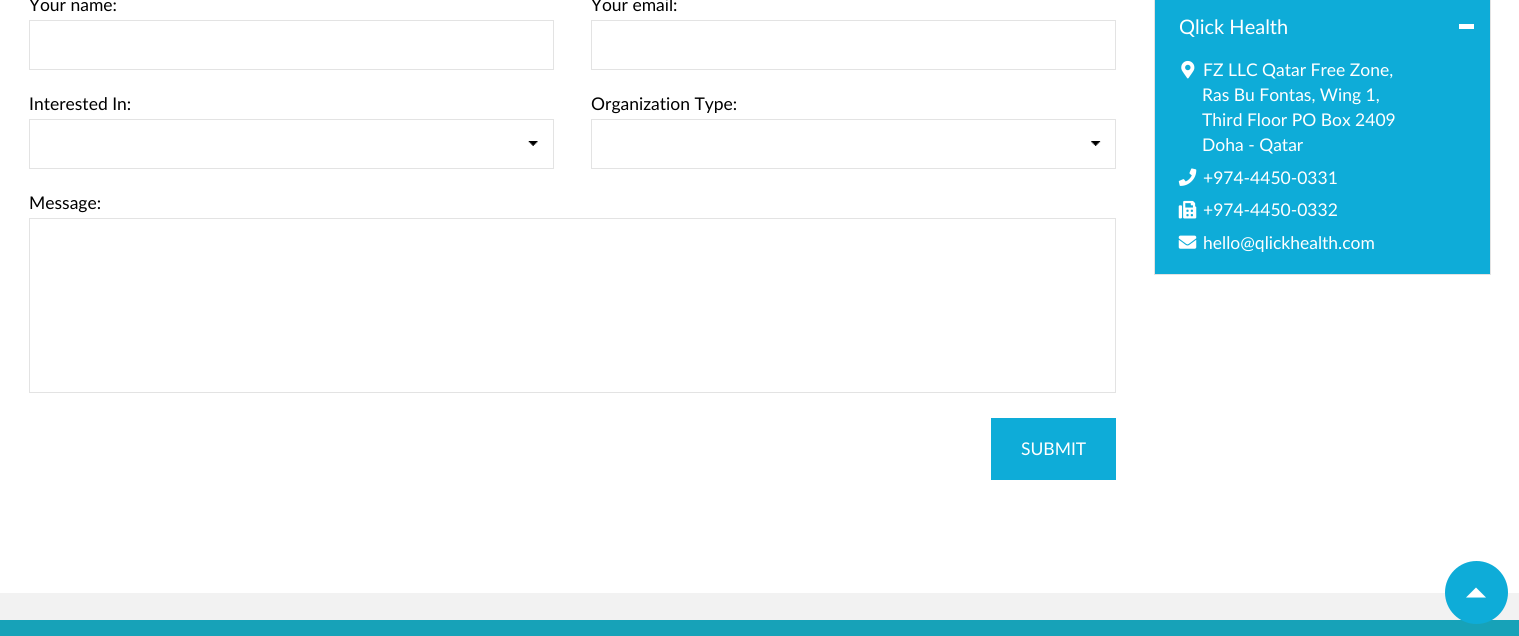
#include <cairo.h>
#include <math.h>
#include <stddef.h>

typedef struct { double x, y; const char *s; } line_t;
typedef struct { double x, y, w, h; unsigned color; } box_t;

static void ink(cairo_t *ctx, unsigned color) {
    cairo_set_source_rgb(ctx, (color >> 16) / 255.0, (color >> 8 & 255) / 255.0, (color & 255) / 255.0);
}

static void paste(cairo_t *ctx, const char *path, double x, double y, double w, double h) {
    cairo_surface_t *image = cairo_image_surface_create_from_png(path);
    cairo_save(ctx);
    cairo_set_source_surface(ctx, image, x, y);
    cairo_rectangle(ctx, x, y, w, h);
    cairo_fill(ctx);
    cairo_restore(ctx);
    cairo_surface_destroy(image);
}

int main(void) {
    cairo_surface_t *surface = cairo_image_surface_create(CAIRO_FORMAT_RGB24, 1519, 636);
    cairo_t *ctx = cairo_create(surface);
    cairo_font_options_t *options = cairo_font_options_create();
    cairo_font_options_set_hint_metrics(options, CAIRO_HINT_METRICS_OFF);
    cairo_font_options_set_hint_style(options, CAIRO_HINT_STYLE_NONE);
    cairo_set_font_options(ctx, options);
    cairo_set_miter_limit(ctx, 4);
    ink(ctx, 0xF2F2F2);
    cairo_paint(ctx);
    ink(ctx, 0xFFFFFF);
    cairo_rectangle(ctx, 0, 0, 1519, 593);
    cairo_fill(ctx);
    cairo_select_font_face(ctx, "Lato", CAIRO_FONT_SLANT_NORMAL, CAIRO_FONT_WEIGHT_NORMAL);
    cairo_set_font_size(ctx, 17.5);
    ink(ctx, 0x000000);
    cairo_move_to(ctx, 29, 11);
    cairo_show_text(ctx, "Your name:");
    cairo_rectangle(ctx, 29.5, 20.5, 524, 49);
    ink(ctx, 0xE3E3E3);
    cairo_set_line_width(ctx, 1);
    cairo_stroke(ctx);
    ink(ctx, 0x000000);
    cairo_move_to(ctx, 591, 11);
    cairo_show_text(ctx, "Your email:");
    cairo_rectangle(ctx, 591.5, 20.5, 524, 49);
    ink(ctx, 0xE3E3E3);
    cairo_stroke(ctx);
    ink(ctx, 0x000000);
    cairo_move_to(ctx, 29, 110);
    cairo_show_text(ctx, "Interested In:");
    paste(ctx, "media/1.png", 528, 141, 10, 5);
    cairo_rectangle(ctx, 29.5, 119.5, 524, 49);
    ink(ctx, 0xE3E3E3);
    cairo_stroke(ctx);
    ink(ctx, 0x000000);
    cairo_move_to(ctx, 591, 110);
    cairo_show_text(ctx, "Organization Type:");
    paste(ctx, "media/2.png", 1091, 141, 10, 5);
    cairo_rectangle(ctx, 591.5, 119.5, 524, 49);
    ink(ctx, 0xE3E3E3);
    cairo_stroke(ctx);
    ink(ctx, 0x000000);
    cairo_move_to(ctx, 29, 209);
    cairo_show_text(ctx, "Message:");
    cairo_rectangle(ctx, 29.5, 218.5, 1086, 174);
    ink(ctx, 0xE3E3E3);
    cairo_stroke(ctx);
    ink(ctx, 0x0EACD8);
    cairo_rectangle(ctx, 991, 418, 125, 62);
    cairo_fill(ctx);
    ink(ctx, 0xFFFFFF);
    cairo_move_to(ctx, 1021, 455);
    cairo_show_text(ctx, "SUBMIT");
    {
        static const box_t items[] = {
            {1490, 0, 1, 275, 0xE3E3E3},
            {1154, 274, 337, 1, 0xE3E3E3},
            {1154, 0, 1, 275, 0xE3E3E3},
            {1155, 0, 335, 274, 0x0EACD8},
        };
        for (size_t i = 0; i < sizeof items / sizeof *items; i++) {
            ink(ctx, items[i].color);
            cairo_rectangle(ctx, items[i].x, items[i].y, items[i].w, items[i].h);
            cairo_fill(ctx);
        }
    }
    cairo_set_font_size(ctx, 20);
    ink(ctx, 0xFFFFFF);
    cairo_move_to(ctx, 1179, 34);
    cairo_show_text(ctx, "Qlick Health");
    cairo_rectangle(ctx, 1459, 24, 15, 5);
    cairo_fill(ctx);
    paste(ctx, "media/3.png", 1181, 60, 14, 19);
    cairo_set_font_size(ctx, 17.5);
    {
        static const line_t items[] = {
            {1203, 76, "FZ LLC Qatar Free Zone,"},
            {1202, 101, "Ras Bu Fontas, Wing 1,"},
            {1202, 126, "Third Floor PO Box 2409"},
            {1202, 151, "Doha - Qatar"},
        };
        for (size_t i = 0; i < sizeof items / sizeof *items; i++) {
            cairo_move_to(ctx, items[i].x, items[i].y);
            cairo_show_text(ctx, items[i].s);
        }
    }
    paste(ctx, "media/4.png", 1178, 168, 19, 18);
    cairo_move_to(ctx, 1203, 184);
    cairo_show_text(ctx, "+974-4450-0331");
    paste(ctx, "media/5.png", 1178, 200, 19, 19);
    cairo_move_to(ctx, 1203, 216);
    cairo_show_text(ctx, "+974-4450-0332");
    paste(ctx, "media/6.png", 1178, 235, 19, 14);
    cairo_move_to(ctx, 1203, 249);
    cairo_show_text(ctx, "hello@qlickhealth.com");
    ink(ctx, 0x17A2B8);
    cairo_rectangle(ctx, 0, 620, 1519, 16);
    cairo_fill(ctx);
    ink(ctx, 0x0EACD8);
    cairo_arc(ctx, 1476.5, 592.5, 31.5, 0, 2 * M_PI);
    cairo_fill(ctx);
    ink(ctx, 0xFFFFFF);
    cairo_new_path(ctx);
    cairo_move_to(ctx, 1486, 597.5);
    cairo_line_to(ctx, 1466, 597.5);
    cairo_line_to(ctx, 1476, 587.5);
    cairo_close_path(ctx);
    cairo_fill(ctx);
    cairo_surface_write_to_png(surface, "image.png");
    cairo_font_options_destroy(options);
    cairo_destroy(ctx);
    cairo_surface_destroy(surface);
    return 0;
}
